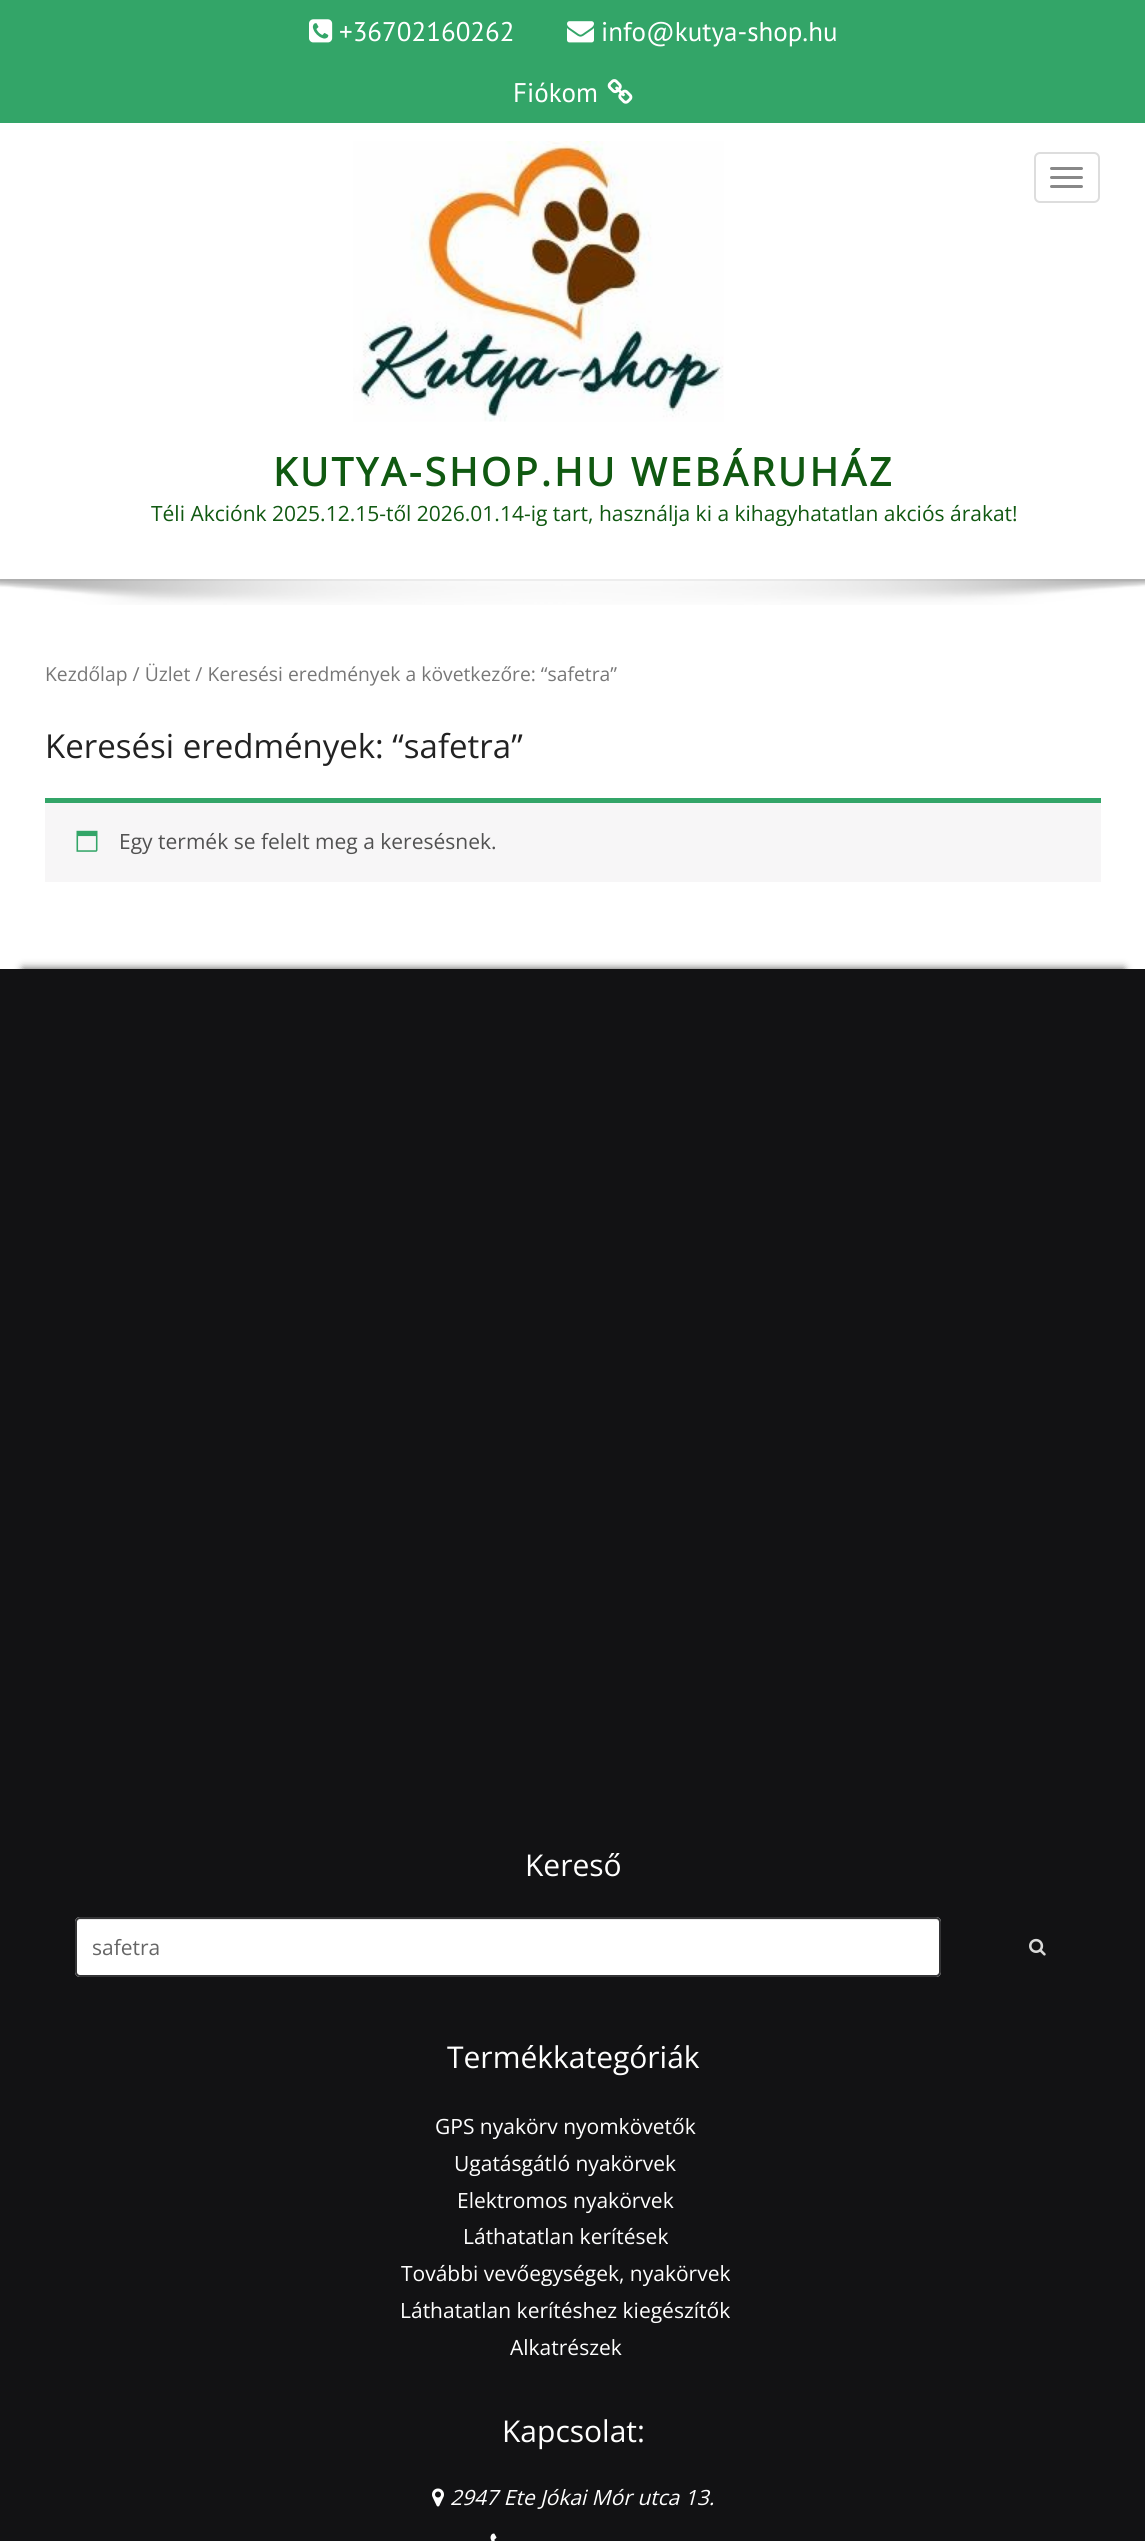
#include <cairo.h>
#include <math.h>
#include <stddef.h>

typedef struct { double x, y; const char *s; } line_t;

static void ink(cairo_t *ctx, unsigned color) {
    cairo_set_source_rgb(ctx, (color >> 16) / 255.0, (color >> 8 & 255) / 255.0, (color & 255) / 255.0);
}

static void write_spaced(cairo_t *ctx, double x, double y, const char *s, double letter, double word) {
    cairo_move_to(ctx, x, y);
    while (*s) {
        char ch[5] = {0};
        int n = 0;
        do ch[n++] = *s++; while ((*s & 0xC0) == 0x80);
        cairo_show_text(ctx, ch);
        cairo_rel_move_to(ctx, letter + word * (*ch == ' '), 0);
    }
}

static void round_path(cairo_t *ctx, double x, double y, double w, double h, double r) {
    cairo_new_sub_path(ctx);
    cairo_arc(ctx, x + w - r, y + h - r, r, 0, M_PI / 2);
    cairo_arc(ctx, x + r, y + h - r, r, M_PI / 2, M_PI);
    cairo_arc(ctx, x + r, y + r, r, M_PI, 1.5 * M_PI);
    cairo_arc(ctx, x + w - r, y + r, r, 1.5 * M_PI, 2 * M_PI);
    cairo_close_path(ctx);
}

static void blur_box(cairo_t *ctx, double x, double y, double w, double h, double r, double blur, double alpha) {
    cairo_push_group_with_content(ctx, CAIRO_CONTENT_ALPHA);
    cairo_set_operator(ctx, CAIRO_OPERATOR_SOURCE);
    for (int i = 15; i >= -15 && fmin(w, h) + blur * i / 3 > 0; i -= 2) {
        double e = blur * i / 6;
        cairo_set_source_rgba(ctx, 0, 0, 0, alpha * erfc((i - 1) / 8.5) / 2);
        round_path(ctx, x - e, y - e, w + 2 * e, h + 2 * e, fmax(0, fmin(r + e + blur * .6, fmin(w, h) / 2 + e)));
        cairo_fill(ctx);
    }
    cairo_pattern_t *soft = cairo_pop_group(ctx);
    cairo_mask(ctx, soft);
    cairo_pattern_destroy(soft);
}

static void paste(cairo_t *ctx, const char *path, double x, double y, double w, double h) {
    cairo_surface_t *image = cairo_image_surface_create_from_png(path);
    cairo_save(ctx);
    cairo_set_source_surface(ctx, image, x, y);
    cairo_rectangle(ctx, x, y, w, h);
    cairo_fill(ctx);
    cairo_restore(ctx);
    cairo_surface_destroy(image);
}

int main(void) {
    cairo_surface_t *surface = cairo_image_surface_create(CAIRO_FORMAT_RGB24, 1145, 2541);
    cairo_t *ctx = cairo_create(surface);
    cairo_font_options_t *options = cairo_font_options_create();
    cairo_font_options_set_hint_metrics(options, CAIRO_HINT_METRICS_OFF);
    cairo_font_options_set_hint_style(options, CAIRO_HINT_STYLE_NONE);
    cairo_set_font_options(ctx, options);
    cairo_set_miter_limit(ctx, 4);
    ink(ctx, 0xFFFFFF);
    cairo_paint(ctx);
    ink(ctx, 0x33A568);
    cairo_rectangle(ctx, 0, 0, 1145, 123);
    cairo_fill(ctx);
    paste(ctx, "media/1.png", 309, 19, 24, 24);
    cairo_select_font_face(ctx, "PT Sans", CAIRO_FONT_SLANT_NORMAL, CAIRO_FONT_WEIGHT_NORMAL);
    cairo_set_font_size(ctx, 27);
    ink(ctx, 0xFFFFFF);
    cairo_move_to(ctx, 339, 41);
    cairo_show_text(ctx, "+36702160262");
    paste(ctx, "media/2.png", 567, 21, 27, 22);
    cairo_move_to(ctx, 601, 41);
    cairo_show_text(ctx, "info@kutya-shop.hu");
    cairo_move_to(ctx, 513, 102);
    cairo_show_text(ctx, "Fiókom");
    paste(ctx, "media/3.png", 607, 79, 26, 25);
    ink(ctx, 0xF2F2F2);
    cairo_rectangle(ctx, 0, 579, 1145, 2);
    cairo_fill(ctx);
    paste(ctx, "media/4.png", 353, 141, 371, 281);
    round_path(ctx, 1035, 153, 64, 49, 5);
    ink(ctx, 0xDDDDDD);
    cairo_stroke(ctx);
    ink(ctx, 0x888888);
    round_path(ctx, 1050, 167, 33, 3, 1.5);
    cairo_fill(ctx);
    round_path(ctx, 1050, 176, 33, 3, 1.5);
    cairo_fill(ctx);
    round_path(ctx, 1050, 185, 33, 3, 1.5);
    cairo_fill(ctx);
    cairo_select_font_face(ctx, "Open Sans", CAIRO_FONT_SLANT_NORMAL, CAIRO_FONT_WEIGHT_BOLD);
    cairo_set_font_size(ctx, 39);
    ink(ctx, 0x105911);
    write_spaced(ctx, 273, 486, "KUTYA-SHOP.HU WEBÁRUHÁZ", 3.1, 0);
    cairo_select_font_face(ctx, "Open Sans", CAIRO_FONT_SLANT_NORMAL, CAIRO_FONT_WEIGHT_NORMAL);
    cairo_set_font_size(ctx, 21);
    cairo_move_to(ctx, 151, 521);
    cairo_show_text(ctx, "Téli Akciónk 2025.12.15-től 2026.01.14-ig tart, használja ki a kihagyhatatlan akciós árakat!");
    paste(ctx, "media/5.png", 0, 579, 1145, 26);
    cairo_set_font_size(ctx, 19.3);
    ink(ctx, 0x777777);
    cairo_move_to(ctx, 45, 681);
    cairo_show_text(ctx, "Kezdőlap / Üzlet / Keresési eredmények a következőre: “safetra”");
    cairo_set_font_size(ctx, 33);
    ink(ctx, 0x222222);
    cairo_move_to(ctx, 45, 758);
    cairo_show_text(ctx, "Keresési eredmények: “safetra”");
    ink(ctx, 0xF7F6F7);
    cairo_rectangle(ctx, 45, 803, 1056, 79);
    cairo_fill(ctx);
    ink(ctx, 0x33A568);
    cairo_rectangle(ctx, 45, 798, 1056, 5);
    cairo_fill(ctx);
    paste(ctx, "media/6.png", 76, 830, 22, 22);
    cairo_set_font_size(ctx, 21);
    ink(ctx, 0x515151);
    cairo_move_to(ctx, 119, 849);
    cairo_show_text(ctx, "Egy termék se felelt meg a keresésnek.");
    ink(ctx, 0x000000);
    blur_box(ctx, 23, 969, 1101, 563, 0, 4.5, 0.7);
    ink(ctx, 0x121214);
    cairo_rectangle(ctx, 0, 969, 1145, 1572);
    cairo_fill(ctx);
    cairo_set_font_size(ctx, 30);
    ink(ctx, 0xFFFFFF);
    cairo_move_to(ctx, 525, 1876);
    cairo_show_text(ctx, "Kereső");
    round_path(ctx, 75, 1917, 866, 60, 5);
    cairo_fill(ctx);
    ink(ctx, 0xECECEC);
    cairo_new_path(ctx);
    cairo_move_to(ctx, 80, 1920);
    cairo_line_to(ctx, 936, 1920);
    cairo_curve_to(ctx, 938, 1920, 939, 1921, 939, 1923);
    cairo_line_to(ctx, 938, 1920);
    cairo_line_to(ctx, 937, 1919);
    cairo_line_to(ctx, 80, 1919);
    cairo_curve_to(ctx, 79, 1919, 78, 1920, 77, 1921);
    cairo_close_path(ctx);
    cairo_fill(ctx);
    round_path(ctx, 76, 1918, 864, 58, 4);
    ink(ctx, 0x343436);
    cairo_stroke(ctx);
    cairo_set_font_size(ctx, 21);
    ink(ctx, 0x666666);
    cairo_move_to(ctx, 92, 1955);
    cairo_show_text(ctx, "safetra");
    paste(ctx, "media/7.png", 1029, 1938, 17, 18);
    cairo_set_font_size(ctx, 30);
    ink(ctx, 0xFFFFFF);
    cairo_move_to(ctx, 447, 2068);
    cairo_show_text(ctx, "Termékkategóriák");
    cairo_set_font_size(ctx, 21);
    {
        static const line_t items[] = {
            {435, 2134, "GPS nyakörv nyomkövetők"},
            {454, 2171, "Ugatásgátló nyakörvek"},
            {457, 2208, "Elektromos nyakörvek"},
            {463, 2244, "Láthatatlan kerítések"},
            {401, 2281, "További vevőegységek, nyakörvek"},
            {400, 2318, "Láthatatlan kerítéshez kiegészítők"},
            {510, 2355, "Alkatrészek"},
        };
        for (size_t i = 0; i < sizeof items / sizeof *items; i++) {
            cairo_move_to(ctx, items[i].x, items[i].y);
            cairo_show_text(ctx, items[i].s);
        }
    }
    cairo_set_font_size(ctx, 30);
    cairo_move_to(ctx, 502, 2442);
    cairo_show_text(ctx, "Kapcsolat:");
    paste(ctx, "media/8.png", 432, 2488, 12, 19);
    cairo_select_font_face(ctx, "Open Sans", CAIRO_FONT_SLANT_ITALIC, CAIRO_FONT_WEIGHT_NORMAL);
    cairo_set_font_size(ctx, 21);
    cairo_move_to(ctx, 450, 2505);
    cairo_show_text(ctx, "2947 Ete Jókai Mór utca 13.");
    paste(ctx, "media/9.png", 490, 2533, 7, 8);
    cairo_surface_write_to_png(surface, "image.png");
    cairo_font_options_destroy(options);
    cairo_destroy(ctx);
    cairo_surface_destroy(surface);
    return 0;
}
